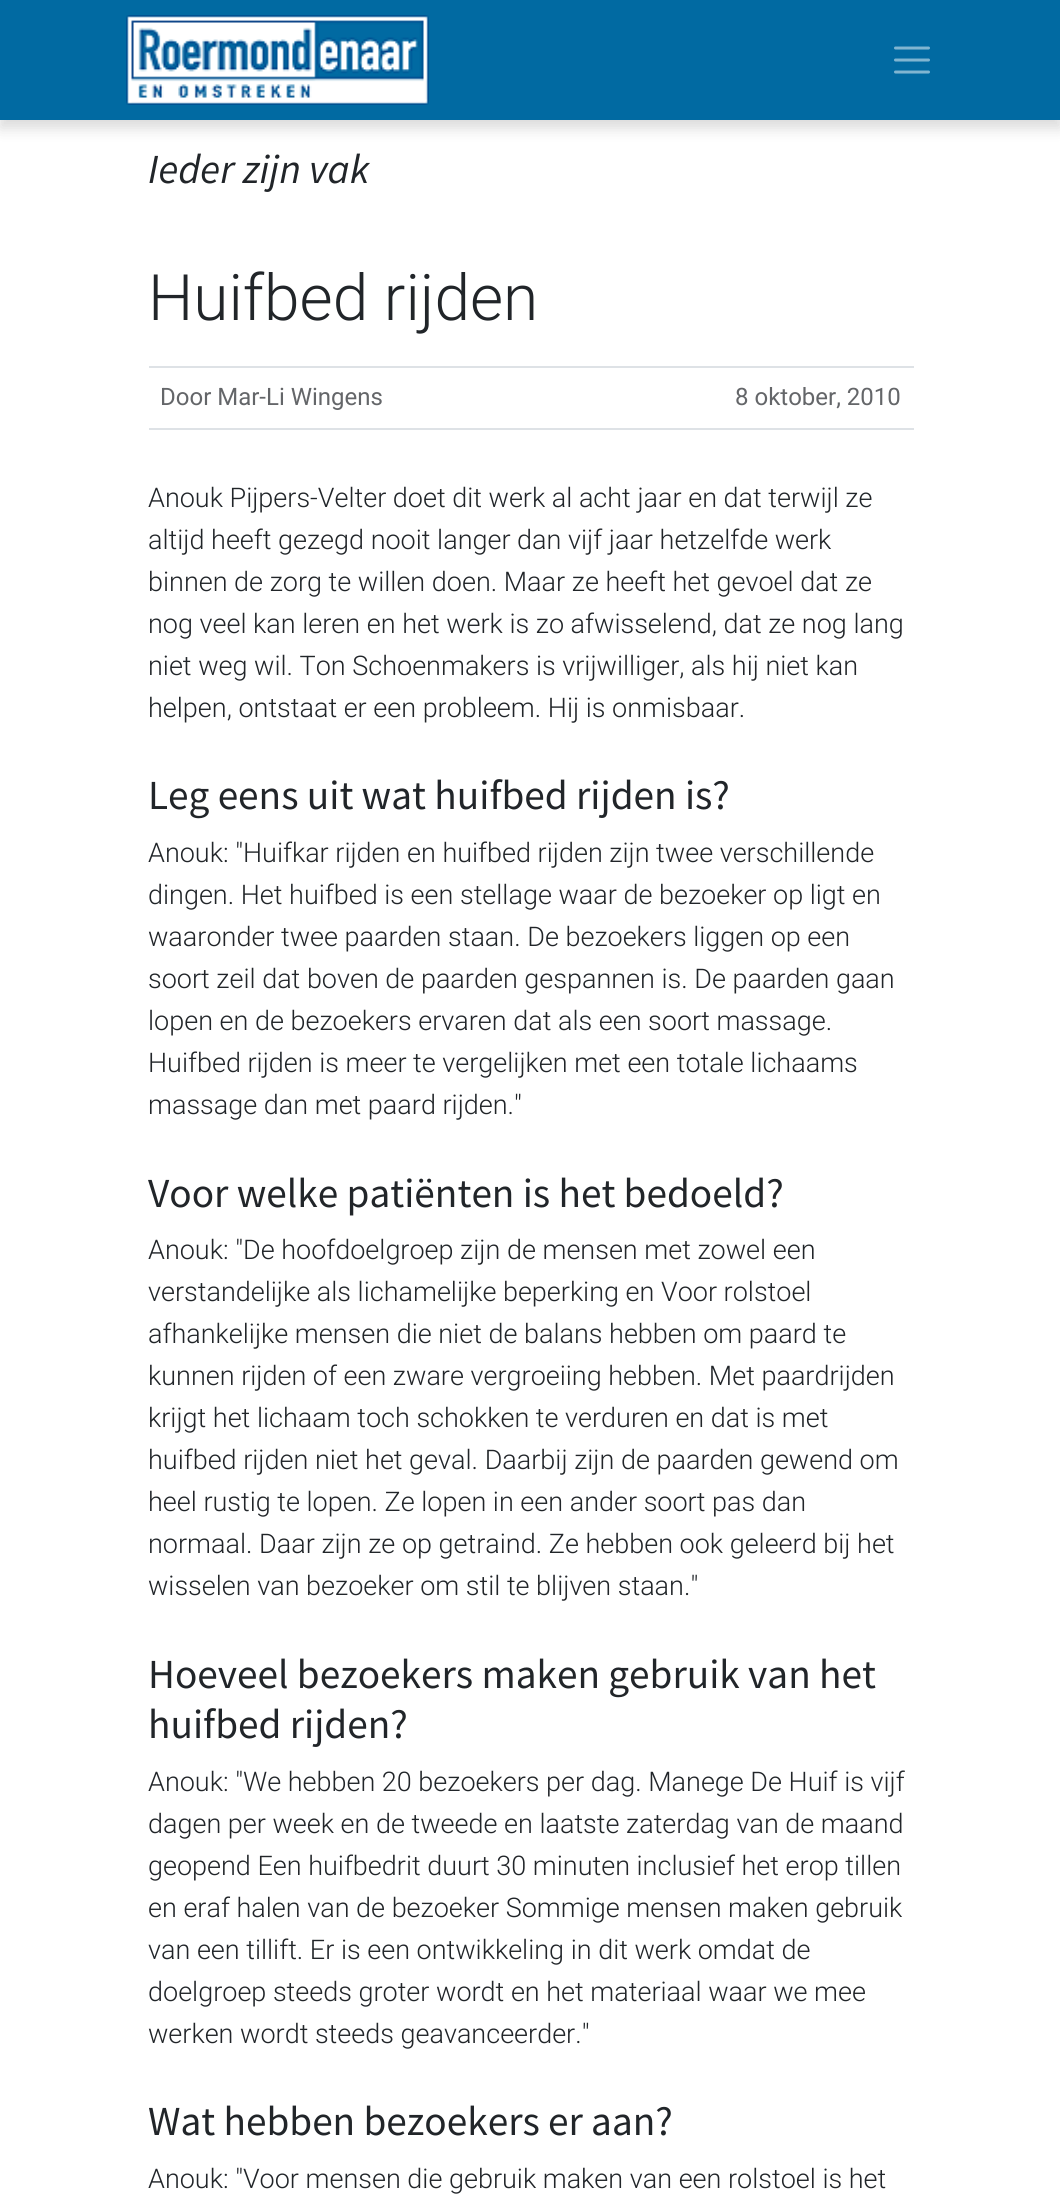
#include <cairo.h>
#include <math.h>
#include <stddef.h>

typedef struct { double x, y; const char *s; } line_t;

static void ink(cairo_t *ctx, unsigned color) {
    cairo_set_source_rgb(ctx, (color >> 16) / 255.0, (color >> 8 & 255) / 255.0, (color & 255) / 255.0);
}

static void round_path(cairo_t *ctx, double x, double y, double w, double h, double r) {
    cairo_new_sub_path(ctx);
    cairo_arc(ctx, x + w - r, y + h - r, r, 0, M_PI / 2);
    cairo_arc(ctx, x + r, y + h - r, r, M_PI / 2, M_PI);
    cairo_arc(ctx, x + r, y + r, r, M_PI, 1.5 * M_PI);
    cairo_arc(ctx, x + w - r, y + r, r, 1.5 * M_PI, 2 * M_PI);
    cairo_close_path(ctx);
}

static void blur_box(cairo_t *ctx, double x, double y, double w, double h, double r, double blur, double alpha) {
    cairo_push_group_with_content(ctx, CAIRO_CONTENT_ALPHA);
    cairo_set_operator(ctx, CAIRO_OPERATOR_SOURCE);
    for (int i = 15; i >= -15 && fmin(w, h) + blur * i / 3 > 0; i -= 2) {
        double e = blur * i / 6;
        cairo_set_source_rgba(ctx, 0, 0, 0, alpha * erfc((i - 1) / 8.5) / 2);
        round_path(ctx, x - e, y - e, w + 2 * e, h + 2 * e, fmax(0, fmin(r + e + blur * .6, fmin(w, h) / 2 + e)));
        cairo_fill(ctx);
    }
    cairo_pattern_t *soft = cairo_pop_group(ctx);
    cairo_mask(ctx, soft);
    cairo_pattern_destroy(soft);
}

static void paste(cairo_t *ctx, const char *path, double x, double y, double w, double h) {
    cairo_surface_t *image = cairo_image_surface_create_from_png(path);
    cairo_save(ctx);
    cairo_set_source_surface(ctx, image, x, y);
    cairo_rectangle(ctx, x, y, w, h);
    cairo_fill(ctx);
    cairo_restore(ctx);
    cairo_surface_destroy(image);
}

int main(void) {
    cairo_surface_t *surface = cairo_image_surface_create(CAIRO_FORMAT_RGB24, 1060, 2204);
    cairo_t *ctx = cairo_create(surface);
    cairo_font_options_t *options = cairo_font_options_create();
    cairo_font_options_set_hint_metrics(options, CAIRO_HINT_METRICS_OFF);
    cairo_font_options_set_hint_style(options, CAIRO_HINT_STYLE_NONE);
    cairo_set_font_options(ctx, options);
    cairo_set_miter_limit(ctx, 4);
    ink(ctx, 0xFFFFFF);
    cairo_paint(ctx);
    ink(ctx, 0x000000);
    blur_box(ctx, 0, 8, 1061, 120, 0, 7.5, 0.15);
    ink(ctx, 0x016AA2);
    cairo_rectangle(ctx, 0, 0, 1060, 120);
    cairo_fill(ctx);
    paste(ctx, "media/1.png", 126, 15, 303, 90);
    cairo_new_path(ctx);
    cairo_move_to(ctx, 895.5, 48);
    cairo_line_to(ctx, 928.5, 48);
    cairo_move_to(ctx, 895.5, 60);
    cairo_line_to(ctx, 928.5, 60);
    cairo_move_to(ctx, 895.5, 72);
    cairo_line_to(ctx, 928.5, 72);
    ink(ctx, 0x80B5D1);
    cairo_set_line_width(ctx, 3);
    cairo_set_line_cap(ctx, CAIRO_LINE_CAP_ROUND);
    cairo_stroke(ctx);
    cairo_select_font_face(ctx, "Source Sans Pro", CAIRO_FONT_SLANT_ITALIC, CAIRO_FONT_WEIGHT_NORMAL);
    cairo_set_font_size(ctx, 41.3);
    ink(ctx, 0x212529);
    cairo_move_to(ctx, 148, 183);
    cairo_show_text(ctx, "Ieder zijn vak");
    cairo_select_font_face(ctx, "Roboto Light", CAIRO_FONT_SLANT_NORMAL, CAIRO_FONT_WEIGHT_NORMAL);
    cairo_set_font_size(ctx, 64);
    cairo_move_to(ctx, 148, 320);
    cairo_show_text(ctx, "Huifbed rijden");
    ink(ctx, 0xDEE2E6);
    cairo_rectangle(ctx, 149, 366, 765, 2);
    cairo_fill(ctx);
    cairo_rectangle(ctx, 149, 428, 765, 2);
    cairo_fill(ctx);
    cairo_select_font_face(ctx, "Roboto", CAIRO_FONT_SLANT_NORMAL, CAIRO_FONT_WEIGHT_NORMAL);
    cairo_set_font_size(ctx, 24);
    ink(ctx, 0x646669);
    cairo_move_to(ctx, 160, 405);
    cairo_show_text(ctx, "Door Mar-Li Wingens");
    cairo_move_to(ctx, 735, 405);
    cairo_show_text(ctx, "8 oktober, 2010");
    cairo_select_font_face(ctx, "Roboto Light", CAIRO_FONT_SLANT_NORMAL, CAIRO_FONT_WEIGHT_NORMAL);
    cairo_set_font_size(ctx, 27);
    ink(ctx, 0x212529);
    {
        static const line_t items[] = {
            {148, 507, "Anouk Pijpers-Velter doet dit werk al acht jaar en dat terwijl ze"},
            {148, 549, "altijd heeft gezegd nooit langer dan vijf jaar hetzelfde werk"},
            {148, 591, "binnen de zorg te willen doen. Maar ze heeft het gevoel dat ze"},
            {148, 633, "nog veel kan leren en het werk is zo afwisselend, dat ze nog lang"},
            {148, 675, "niet weg wil. Ton Schoenmakers is vrijwilliger, als hij niet kan"},
            {148, 717, "helpen, ontstaat er een probleem. Hij is onmisbaar."},
        };
        for (size_t i = 0; i < sizeof items / sizeof *items; i++) {
            cairo_move_to(ctx, items[i].x, items[i].y);
            cairo_show_text(ctx, items[i].s);
        }
    }
    cairo_select_font_face(ctx, "Source Sans Pro", CAIRO_FONT_SLANT_NORMAL, CAIRO_FONT_WEIGHT_NORMAL);
    cairo_set_font_size(ctx, 41.3);
    cairo_move_to(ctx, 148, 809);
    cairo_show_text(ctx, "Leg eens uit wat huifbed rijden is?");
    cairo_select_font_face(ctx, "Roboto Light", CAIRO_FONT_SLANT_NORMAL, CAIRO_FONT_WEIGHT_NORMAL);
    cairo_set_font_size(ctx, 27);
    {
        static const line_t items[] = {
            {148, 862, "Anouk: \"Huifkar rijden en huifbed rijden zijn twee verschillende"},
            {148, 904, "dingen. Het huifbed is een stellage waar de bezoeker op ligt en"},
            {148, 946, "waaronder twee paarden staan. De bezoekers liggen op een"},
            {148, 988, "soort zeil dat boven de paarden gespannen is. De paarden gaan"},
            {148, 1030, "lopen en de bezoekers ervaren dat als een soort massage."},
            {148, 1072, "Huifbed rijden is meer te vergelijken met een totale lichaams"},
            {148, 1114, "massage dan met paard rijden.\""},
        };
        for (size_t i = 0; i < sizeof items / sizeof *items; i++) {
            cairo_move_to(ctx, items[i].x, items[i].y);
            cairo_show_text(ctx, items[i].s);
        }
    }
    cairo_select_font_face(ctx, "Source Sans Pro", CAIRO_FONT_SLANT_NORMAL, CAIRO_FONT_WEIGHT_NORMAL);
    cairo_set_font_size(ctx, 41.3);
    cairo_move_to(ctx, 148, 1207);
    cairo_show_text(ctx, "Voor welke patiënten is het bedoeld?");
    cairo_select_font_face(ctx, "Roboto Light", CAIRO_FONT_SLANT_NORMAL, CAIRO_FONT_WEIGHT_NORMAL);
    cairo_set_font_size(ctx, 27);
    {
        static const line_t items[] = {
            {148, 1259, "Anouk: \"De hoofdoelgroep zijn de mensen met zowel een"},
            {148, 1301, "verstandelijke als lichamelijke beperking en Voor rolstoel"},
            {148, 1343, "afhankelijke mensen die niet de balans hebben om paard te"},
            {148, 1385, "kunnen rijden of een zware vergroeiing hebben. Met paardrijden"},
            {148, 1427, "krijgt het lichaam toch schokken te verduren en dat is met"},
            {148, 1469, "huifbed rijden niet het geval. Daarbij zijn de paarden gewend om"},
            {148, 1511, "heel rustig te lopen. Ze lopen in een ander soort pas dan"},
            {148, 1553, "normaal. Daar zijn ze op getraind. Ze hebben ook geleerd bij het"},
            {148, 1595, "wisselen van bezoeker om stil te blijven staan.\""},
        };
        for (size_t i = 0; i < sizeof items / sizeof *items; i++) {
            cairo_move_to(ctx, items[i].x, items[i].y);
            cairo_show_text(ctx, items[i].s);
        }
    }
    cairo_select_font_face(ctx, "Source Sans Pro", CAIRO_FONT_SLANT_NORMAL, CAIRO_FONT_WEIGHT_NORMAL);
    cairo_set_font_size(ctx, 41.3);
    cairo_move_to(ctx, 148, 1688);
    cairo_show_text(ctx, "Hoeveel bezoekers maken gebruik van het");
    cairo_move_to(ctx, 148, 1738);
    cairo_show_text(ctx, "huifbed rijden?");
    cairo_select_font_face(ctx, "Roboto Light", CAIRO_FONT_SLANT_NORMAL, CAIRO_FONT_WEIGHT_NORMAL);
    cairo_set_font_size(ctx, 27);
    {
        static const line_t items[] = {
            {148, 1791, "Anouk: \"We hebben 20 bezoekers per dag. Manege De Huif is vijf"},
            {148, 1833, "dagen per week en de tweede en laatste zaterdag van de maand"},
            {148, 1875, "geopend Een huifbedrit duurt 30 minuten inclusief het erop tillen"},
            {148, 1917, "en eraf halen van de bezoeker Sommige mensen maken gebruik"},
            {148, 1959, "van een tillift. Er is een ontwikkeling in dit werk omdat de"},
            {148, 2001, "doelgroep steeds groter wordt en het materiaal waar we mee"},
            {148, 2043, "werken wordt steeds geavanceerder.\""},
        };
        for (size_t i = 0; i < sizeof items / sizeof *items; i++) {
            cairo_move_to(ctx, items[i].x, items[i].y);
            cairo_show_text(ctx, items[i].s);
        }
    }
    cairo_select_font_face(ctx, "Source Sans Pro", CAIRO_FONT_SLANT_NORMAL, CAIRO_FONT_WEIGHT_NORMAL);
    cairo_set_font_size(ctx, 41.3);
    cairo_move_to(ctx, 148, 2135);
    cairo_show_text(ctx, "Wat hebben bezoekers er aan?");
    cairo_select_font_face(ctx, "Roboto Light", CAIRO_FONT_SLANT_NORMAL, CAIRO_FONT_WEIGHT_NORMAL);
    cairo_set_font_size(ctx, 27);
    cairo_move_to(ctx, 148, 2188);
    cairo_show_text(ctx, "Anouk: \"Voor mensen die gebruik maken van een rolstoel is het");
    cairo_surface_write_to_png(surface, "image.png");
    cairo_font_options_destroy(options);
    cairo_destroy(ctx);
    cairo_surface_destroy(surface);
    return 0;
}
